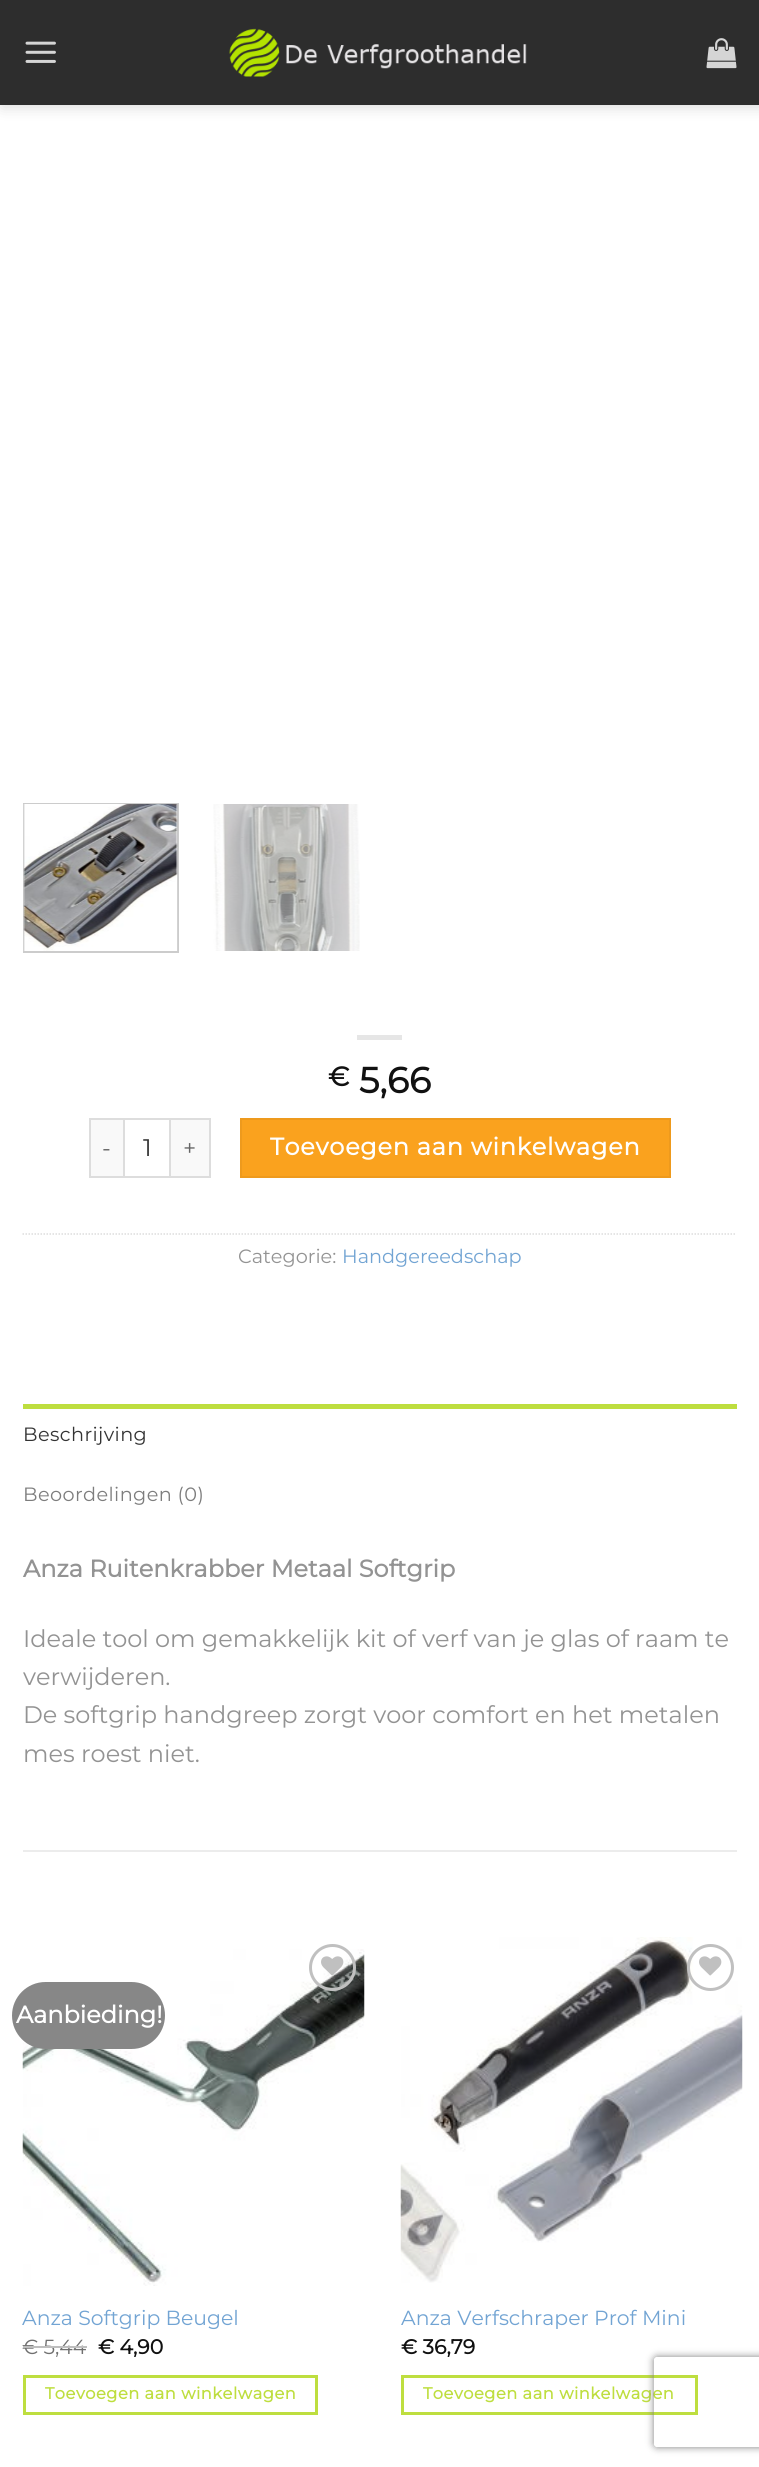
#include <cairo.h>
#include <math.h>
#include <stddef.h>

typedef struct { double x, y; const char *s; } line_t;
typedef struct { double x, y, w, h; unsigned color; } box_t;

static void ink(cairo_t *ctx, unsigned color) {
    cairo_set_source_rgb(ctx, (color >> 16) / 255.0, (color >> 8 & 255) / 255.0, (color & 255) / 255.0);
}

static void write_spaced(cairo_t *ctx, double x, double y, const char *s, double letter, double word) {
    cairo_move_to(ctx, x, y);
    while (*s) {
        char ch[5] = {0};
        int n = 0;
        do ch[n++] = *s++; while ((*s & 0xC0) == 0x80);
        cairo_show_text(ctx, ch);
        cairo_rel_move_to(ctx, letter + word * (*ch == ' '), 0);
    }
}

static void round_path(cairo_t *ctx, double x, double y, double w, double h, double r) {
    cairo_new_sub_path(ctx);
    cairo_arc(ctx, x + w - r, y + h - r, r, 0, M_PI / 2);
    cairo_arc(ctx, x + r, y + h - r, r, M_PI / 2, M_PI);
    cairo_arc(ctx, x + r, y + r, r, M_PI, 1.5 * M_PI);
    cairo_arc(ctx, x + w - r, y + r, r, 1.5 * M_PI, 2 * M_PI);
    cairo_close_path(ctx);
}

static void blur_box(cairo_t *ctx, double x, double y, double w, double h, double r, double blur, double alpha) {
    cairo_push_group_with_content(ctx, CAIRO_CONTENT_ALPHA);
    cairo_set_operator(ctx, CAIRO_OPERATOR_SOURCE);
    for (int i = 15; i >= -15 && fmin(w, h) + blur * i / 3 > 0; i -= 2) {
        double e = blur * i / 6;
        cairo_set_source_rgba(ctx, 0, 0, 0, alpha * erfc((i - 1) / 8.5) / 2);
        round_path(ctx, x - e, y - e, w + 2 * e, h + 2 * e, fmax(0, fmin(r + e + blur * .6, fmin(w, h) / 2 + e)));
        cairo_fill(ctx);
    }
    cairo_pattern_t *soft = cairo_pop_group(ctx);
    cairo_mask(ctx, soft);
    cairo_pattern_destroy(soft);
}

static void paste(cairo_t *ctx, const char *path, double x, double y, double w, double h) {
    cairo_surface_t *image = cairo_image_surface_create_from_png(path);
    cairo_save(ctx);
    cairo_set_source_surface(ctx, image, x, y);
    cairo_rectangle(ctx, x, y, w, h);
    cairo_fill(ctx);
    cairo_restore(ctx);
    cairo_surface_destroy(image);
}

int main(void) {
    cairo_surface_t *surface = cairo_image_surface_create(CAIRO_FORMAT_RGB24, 759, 2467);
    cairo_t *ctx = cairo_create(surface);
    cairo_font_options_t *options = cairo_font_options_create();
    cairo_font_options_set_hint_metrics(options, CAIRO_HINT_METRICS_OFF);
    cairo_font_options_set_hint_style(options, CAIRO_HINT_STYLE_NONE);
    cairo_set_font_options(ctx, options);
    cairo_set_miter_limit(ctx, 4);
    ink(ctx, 0xFFFFFF);
    cairo_paint(ctx);
    ink(ctx, 0x000000);
    blur_box(ctx, 2, 2, 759, 105, 0, 7.5, 0.15);
    ink(ctx, 0x2D2D2D);
    cairo_rectangle(ctx, 0, 0, 759, 105);
    cairo_fill(ctx);
    paste(ctx, "media/1.png", 25, 41, 31, 22);
    paste(ctx, "media/2.png", 229, 28, 298, 49);
    paste(ctx, "media/3.png", 706, 38, 31, 31);
    cairo_rectangle(ctx, 24, 804, 154, 148);
    ink(ctx, 0xCCCCCC);
    cairo_stroke(ctx);
    paste(ctx, "media/4.png", 23, 804, 155, 147);
    paste(ctx, "media/5.png", 213, 804, 147, 147);
    ink(ctx, 0xE6E6E6);
    cairo_rectangle(ctx, 357, 1035, 45, 5);
    cairo_fill(ctx);
    cairo_select_font_face(ctx, "Montserrat", CAIRO_FONT_SLANT_NORMAL, CAIRO_FONT_WEIGHT_BOLD);
    cairo_set_font_size(ctx, 27);
    ink(ctx, 0x111111);
    cairo_move_to(ctx, 328, 1086);
    cairo_show_text(ctx, "€");
    cairo_set_font_size(ctx, 36);
    cairo_move_to(ctx, 359, 1093);
    cairo_show_text(ctx, "5,66");
    {
        static const box_t items[] = {
            {91, 1120, 32, 56, 0xF9F9F9},
            {89, 1118, 34, 2, 0xDDDDDD},
            {89, 1176, 34, 2, 0xDDDDDD},
            {89, 1118, 2, 60, 0xDDDDDD},
        };
        for (size_t i = 0; i < sizeof items / sizeof *items; i++) {
            ink(ctx, items[i].color);
            cairo_rectangle(ctx, items[i].x, items[i].y, items[i].w, items[i].h);
            cairo_fill(ctx);
        }
    }
    cairo_select_font_face(ctx, "Montserrat Thin", CAIRO_FONT_SLANT_NORMAL, CAIRO_FONT_WEIGHT_NORMAL);
    cairo_set_font_size(ctx, 23);
    ink(ctx, 0x666666);
    write_spaced(ctx, 102, 1156, "-", 1, 0);
    cairo_rectangle(ctx, 124, 1119, 46, 58);
    ink(ctx, 0xDDDDDD);
    cairo_stroke(ctx);
    cairo_set_font_size(ctx, 24);
    ink(ctx, 0x333333);
    cairo_move_to(ctx, 143, 1156);
    cairo_show_text(ctx, "1");
    {
        static const box_t items[] = {
            {171, 1120, 38, 56, 0xF9F9F9},
            {171, 1118, 39, 2, 0xDDDDDD},
            {209, 1118, 2, 60, 0xDDDDDD},
            {171, 1176, 39, 2, 0xDDDDDD},
        };
        for (size_t i = 0; i < sizeof items / sizeof *items; i++) {
            ink(ctx, items[i].color);
            cairo_rectangle(ctx, items[i].x, items[i].y, items[i].w, items[i].h);
            cairo_fill(ctx);
        }
    }
    cairo_set_font_size(ctx, 23);
    ink(ctx, 0x666666);
    write_spaced(ctx, 183, 1156, "+", 1, 0);
    ink(ctx, 0xFAA21E);
    cairo_rectangle(ctx, 241, 1119, 429, 58);
    cairo_fill_preserve(ctx);
    ink(ctx, 0xEE9A1D);
    cairo_stroke(ctx);
    cairo_select_font_face(ctx, "Montserrat", CAIRO_FONT_SLANT_NORMAL, CAIRO_FONT_WEIGHT_BOLD);
    cairo_set_font_size(ctx, 24);
    ink(ctx, 0xFFFFFF);
    write_spaced(ctx, 270, 1155, "Toevoegen aan winkelwagen", 0.75, 0);
    cairo_new_path(ctx);
    cairo_move_to(ctx, 22.5, 1234);
    cairo_line_to(ctx, 736.5, 1234);
    ink(ctx, 0xDDDDDD);
    cairo_set_line_width(ctx, 1.5);
    cairo_set_dash(ctx, (double[]){1.5, 1.5}, 2, 0);
    cairo_stroke(ctx);
    cairo_select_font_face(ctx, "Montserrat Thin", CAIRO_FONT_SLANT_NORMAL, CAIRO_FONT_WEIGHT_NORMAL);
    cairo_set_font_size(ctx, 19.25);
    ink(ctx, 0x939393);
    cairo_move_to(ctx, 238, 1263);
    cairo_show_text(ctx, "Categorie:");
    ink(ctx, 0x72A4D3);
    cairo_move_to(ctx, 342, 1263);
    cairo_show_text(ctx, "Handgereedschap");
    ink(ctx, 0xBEDE3F);
    cairo_rectangle(ctx, 23, 1404, 714, 5);
    cairo_fill(ctx);
    ink(ctx, 0x333333);
    write_spaced(ctx, 23, 1441, "Beschrijving", 0.4, 0);
    ink(ctx, 0x7D7D7D);
    write_spaced(ctx, 23, 1501, "Beoordelingen (0)", 0.4, 0);
    cairo_select_font_face(ctx, "Montserrat", CAIRO_FONT_SLANT_NORMAL, CAIRO_FONT_WEIGHT_BOLD);
    cairo_set_font_size(ctx, 24);
    ink(ctx, 0x939393);
    cairo_move_to(ctx, 23, 1577);
    cairo_show_text(ctx, "Anza Ruitenkrabber Metaal Softgrip");
    cairo_select_font_face(ctx, "Montserrat Thin", CAIRO_FONT_SLANT_NORMAL, CAIRO_FONT_WEIGHT_NORMAL);
    {
        static const line_t items[] = {
            {23, 1647, "Ideale tool om gemakkelijk kit of verf van je glas of raam te"},
            {23, 1685, "verwijderen."},
            {23, 1723, "De softgrip handgreep zorgt voor comfort en het metalen"},
            {23, 1762, "mes roest niet."},
        };
        for (size_t i = 0; i < sizeof items / sizeof *items; i++) {
            cairo_move_to(ctx, items[i].x, items[i].y);
            cairo_show_text(ctx, items[i].s);
        }
    }
    ink(ctx, 0xECECEC);
    cairo_rectangle(ctx, 23, 1850, 714, 2);
    cairo_fill(ctx);
    paste(ctx, "media/7.png", 22, 1949, 343, 337);
    ink(ctx, 0x878787);
    round_path(ctx, 12, 1982, 153, 67, 33.5);
    cairo_fill(ctx);
    cairo_select_font_face(ctx, "Montserrat", CAIRO_FONT_SLANT_NORMAL, CAIRO_FONT_WEIGHT_BOLD);
    ink(ctx, 0xFFFFFF);
    cairo_move_to(ctx, 16, 2023);
    cairo_show_text(ctx, "Aanbieding!");
    cairo_new_path(ctx);
    cairo_arc(ctx, 332.5, 1967.5, 22, 0, 2 * M_PI);
    ink(ctx, 0xC0C0C0);
    cairo_set_line_width(ctx, 3);
    cairo_set_dash(ctx, NULL, 0, 0);
    cairo_stroke(ctx);
    paste(ctx, "media/6.png", 321, 1956, 23, 20);
    cairo_select_font_face(ctx, "Montserrat Thin", CAIRO_FONT_SLANT_NORMAL, CAIRO_FONT_WEIGHT_NORMAL);
    cairo_set_font_size(ctx, 20.4);
    ink(ctx, 0x72A4D3);
    cairo_move_to(ctx, 22, 2325);
    cairo_show_text(ctx, "Anza Softgrip Beugel");
    ink(ctx, 0x707070);
    cairo_move_to(ctx, 22, 2354);
    cairo_show_text(ctx, "€ 5,44");
    ink(ctx, 0xBEBEBE);
    cairo_rectangle(ctx, 23, 2346, 64, 2);
    cairo_fill(ctx);
    cairo_select_font_face(ctx, "Montserrat", CAIRO_FONT_SLANT_NORMAL, CAIRO_FONT_WEIGHT_BOLD);
    ink(ctx, 0x111111);
    cairo_move_to(ctx, 98, 2354);
    cairo_show_text(ctx, "€ 4,90");
    cairo_rectangle(ctx, 24.5, 2376.5, 292, 37);
    ink(ctx, 0xBEDE3F);
    cairo_stroke(ctx);
    cairo_set_font_size(ctx, 16.3);
    write_spaced(ctx, 45, 2399, "Toevoegen aan winkelwagen", 0.5, 0);
    paste(ctx, "media/8.png", 400, 1937, 343, 346);
    cairo_arc(ctx, 710.5, 1967.5, 22, 0, 2 * M_PI);
    ink(ctx, 0xC0C0C0);
    cairo_stroke(ctx);
    paste(ctx, "media/9.png", 699, 1956, 23, 20);
    cairo_select_font_face(ctx, "Montserrat Thin", CAIRO_FONT_SLANT_NORMAL, CAIRO_FONT_WEIGHT_NORMAL);
    cairo_set_font_size(ctx, 20.4);
    ink(ctx, 0x72A4D3);
    cairo_move_to(ctx, 401, 2325);
    cairo_show_text(ctx, "Anza Verfschraper Prof Mini");
    cairo_select_font_face(ctx, "Montserrat", CAIRO_FONT_SLANT_NORMAL, CAIRO_FONT_WEIGHT_BOLD);
    ink(ctx, 0x111111);
    cairo_move_to(ctx, 401, 2354);
    cairo_show_text(ctx, "€ 36,79");
    cairo_rectangle(ctx, 402.5, 2376.5, 294, 37);
    ink(ctx, 0xBEDE3F);
    cairo_stroke(ctx);
    cairo_set_font_size(ctx, 16.3);
    write_spaced(ctx, 423, 2399, "Toevoegen aan winkelwagen", 0.5, 0);
    cairo_save(ctx);
    cairo_set_fill_rule(ctx, CAIRO_FILL_RULE_EVEN_ODD);
    cairo_new_path(ctx);
    cairo_move_to(ctx, 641, 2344);
    cairo_line_to(ctx, 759, 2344);
    cairo_line_to(ctx, 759, 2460);
    cairo_line_to(ctx, 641, 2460);
    cairo_close_path(ctx);
    cairo_move_to(ctx, 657, 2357);
    cairo_line_to(ctx, 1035, 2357);
    cairo_curve_to(ctx, 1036.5, 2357, 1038, 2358.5, 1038, 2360);
    cairo_line_to(ctx, 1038, 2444);
    cairo_curve_to(ctx, 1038, 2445.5, 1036.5, 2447, 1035, 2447);
    cairo_line_to(ctx, 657, 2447);
    cairo_curve_to(ctx, 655.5, 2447, 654, 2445.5, 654, 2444);
    cairo_line_to(ctx, 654, 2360);
    cairo_curve_to(ctx, 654, 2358.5, 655.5, 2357, 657, 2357);
    cairo_close_path(ctx);
    cairo_clip(ctx);
    ink(ctx, 0x808080);
    blur_box(ctx, 654, 2357, 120, 90, 3, 4, 1);
    cairo_restore(ctx);
    cairo_surface_write_to_png(surface, "image.png");
    cairo_font_options_destroy(options);
    cairo_destroy(ctx);
    cairo_surface_destroy(surface);
    return 0;
}
